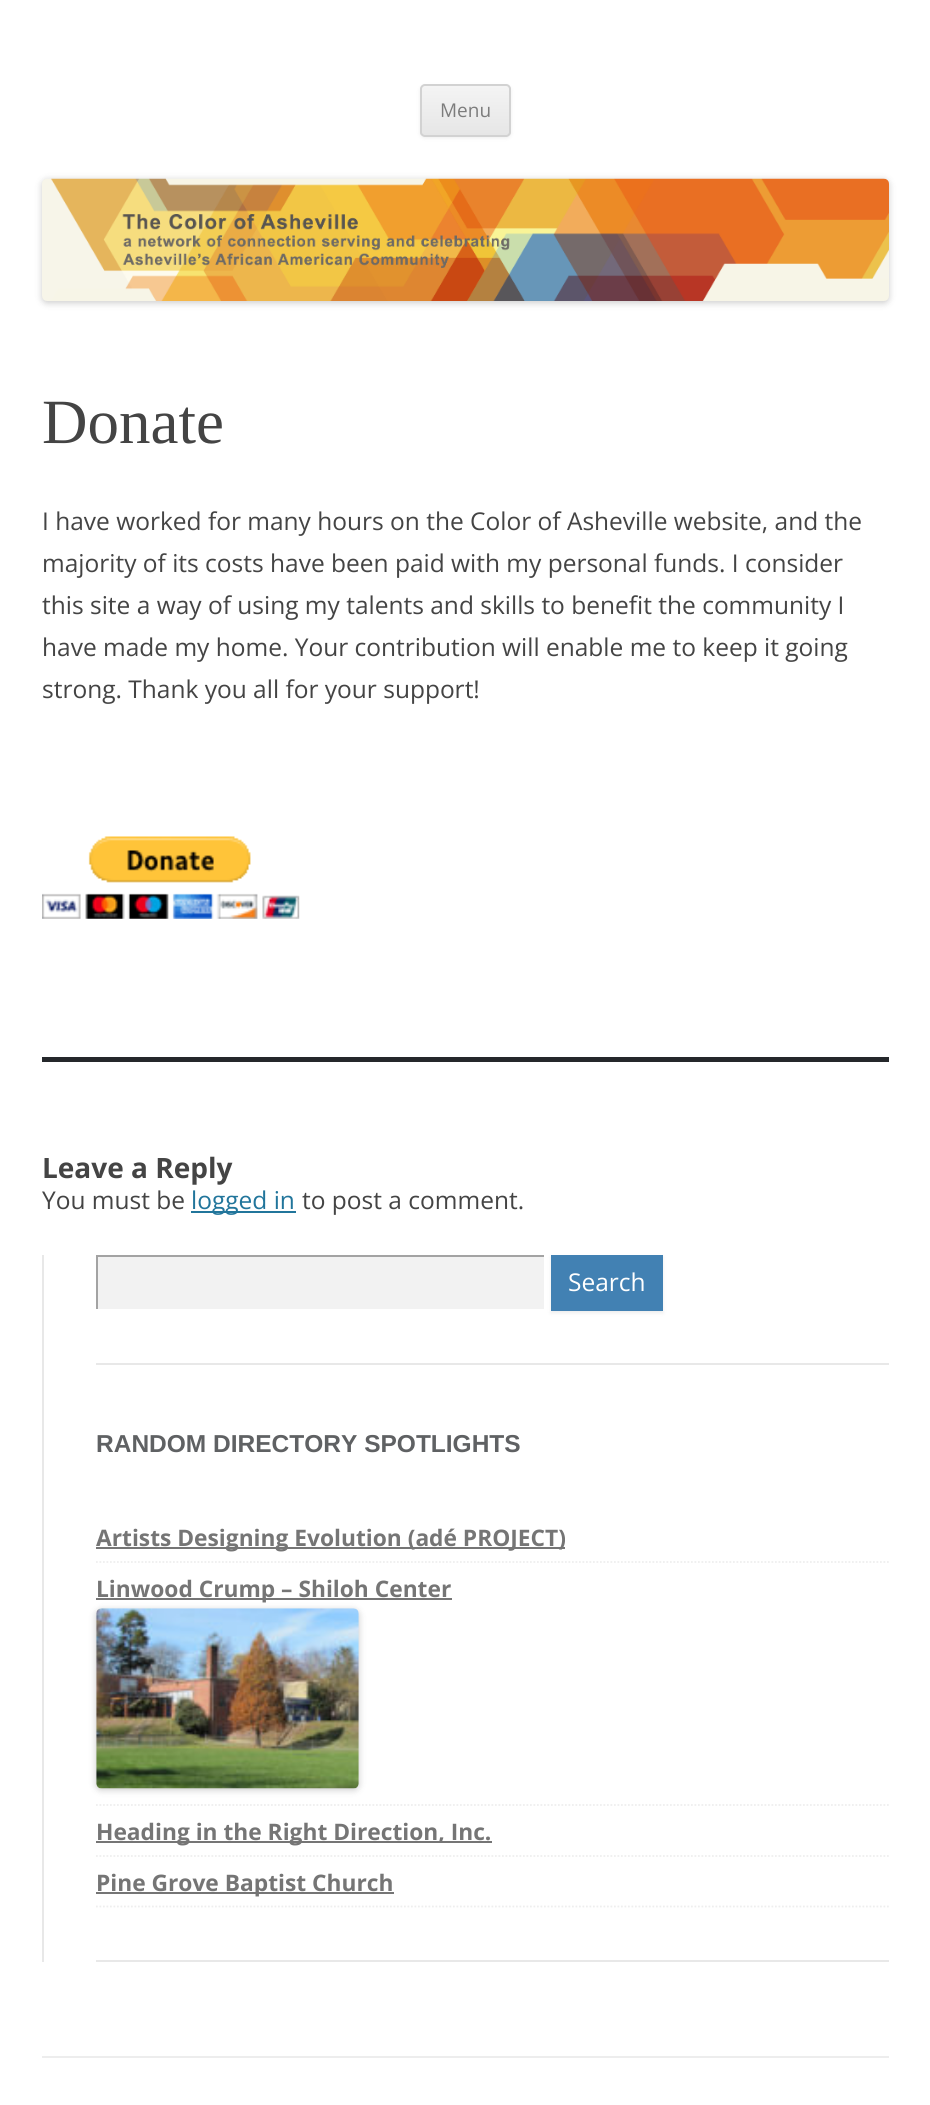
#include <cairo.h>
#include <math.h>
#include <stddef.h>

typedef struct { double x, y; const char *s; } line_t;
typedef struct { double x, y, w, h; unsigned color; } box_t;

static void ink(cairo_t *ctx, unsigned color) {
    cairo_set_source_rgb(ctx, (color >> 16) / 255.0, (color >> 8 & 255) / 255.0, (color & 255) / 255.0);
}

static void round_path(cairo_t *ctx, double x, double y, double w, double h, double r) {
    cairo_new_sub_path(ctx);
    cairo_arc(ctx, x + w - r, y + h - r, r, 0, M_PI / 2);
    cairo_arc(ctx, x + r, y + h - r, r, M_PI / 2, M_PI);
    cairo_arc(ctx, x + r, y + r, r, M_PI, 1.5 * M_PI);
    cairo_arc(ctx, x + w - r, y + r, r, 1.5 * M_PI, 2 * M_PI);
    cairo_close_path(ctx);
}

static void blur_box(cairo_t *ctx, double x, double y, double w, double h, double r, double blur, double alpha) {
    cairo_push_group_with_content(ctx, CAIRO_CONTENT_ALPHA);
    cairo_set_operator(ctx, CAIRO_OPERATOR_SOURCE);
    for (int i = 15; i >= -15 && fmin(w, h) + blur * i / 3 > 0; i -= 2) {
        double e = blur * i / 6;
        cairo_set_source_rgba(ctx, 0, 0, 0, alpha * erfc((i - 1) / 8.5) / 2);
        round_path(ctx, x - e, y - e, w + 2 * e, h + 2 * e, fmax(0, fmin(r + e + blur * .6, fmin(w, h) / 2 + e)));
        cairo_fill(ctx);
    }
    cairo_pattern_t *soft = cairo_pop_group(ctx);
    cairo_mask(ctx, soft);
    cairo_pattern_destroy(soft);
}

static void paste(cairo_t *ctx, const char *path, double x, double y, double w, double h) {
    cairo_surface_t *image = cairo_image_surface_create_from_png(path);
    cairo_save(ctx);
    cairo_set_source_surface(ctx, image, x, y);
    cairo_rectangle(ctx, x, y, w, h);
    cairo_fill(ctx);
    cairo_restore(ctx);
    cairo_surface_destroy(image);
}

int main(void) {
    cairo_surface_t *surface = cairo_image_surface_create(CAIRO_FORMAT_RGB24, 930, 2105);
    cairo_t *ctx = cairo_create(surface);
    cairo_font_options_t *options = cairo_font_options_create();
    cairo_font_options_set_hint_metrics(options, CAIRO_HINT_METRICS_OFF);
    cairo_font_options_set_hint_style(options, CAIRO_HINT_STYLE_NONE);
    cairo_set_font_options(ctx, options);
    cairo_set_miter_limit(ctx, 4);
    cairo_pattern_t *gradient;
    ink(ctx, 0xFFFFFF);
    cairo_paint(ctx);
    ink(ctx, 0x404040);
    blur_box(ctx, 420, 86, 91, 52, 5, 2, 0.1);
    cairo_save(ctx);
    round_path(ctx, 420, 84, 91, 53, 5);
    cairo_clip(ctx);
    gradient = cairo_pattern_create_linear(466, 86, 466, 135);
    cairo_pattern_add_color_stop_rgba(gradient, 0, 0.957, 0.957, 0.957, 1);
    cairo_pattern_add_color_stop_rgba(gradient, 1, 0.902, 0.902, 0.902, 1);
    cairo_set_source(ctx, gradient);
    cairo_pattern_destroy(gradient);
    cairo_rectangle(ctx, 420, 86, 91, 49);
    cairo_fill(ctx);
    cairo_restore(ctx);
    round_path(ctx, 421, 85, 89, 51, 4);
    ink(ctx, 0xD2D2D2);
    cairo_stroke(ctx);
    cairo_select_font_face(ctx, "Open Sans", CAIRO_FONT_SLANT_NORMAL, CAIRO_FONT_WEIGHT_NORMAL);
    cairo_set_font_size(ctx, 19);
    ink(ctx, 0x7C7C7C);
    cairo_move_to(ctx, 440, 117);
    cairo_show_text(ctx, "Menu");
    ink(ctx, 0x000000);
    blur_box(ctx, 42, 180, 847, 123, 5, 3.5, 0.2);
    paste(ctx, "media/1.png", 42, 178, 847, 123);
    ink(ctx, 0x25282B);
    cairo_rectangle(ctx, 42, 1057, 847, 5);
    cairo_fill(ctx);
    cairo_select_font_face(ctx, "Liberation Serif", CAIRO_FONT_SLANT_NORMAL, CAIRO_FONT_WEIGHT_NORMAL);
    cairo_set_font_size(ctx, 63);
    ink(ctx, 0x444444);
    cairo_move_to(ctx, 42, 443);
    cairo_show_text(ctx, "Donate");
    cairo_select_font_face(ctx, "Open Sans", CAIRO_FONT_SLANT_NORMAL, CAIRO_FONT_WEIGHT_NORMAL);
    cairo_set_font_size(ctx, 24.5);
    {
        static const line_t items[] = {
            {42, 530, "I have worked for many hours on the Color of Asheville website, and the"},
            {42, 572, "majority of its costs have been paid with my personal funds. I consider"},
            {42, 614, "this site a way of using my talents and skills to benefit the community I"},
            {42, 656, "have made my home. Your contribution will enable me to keep it going"},
            {42, 698, "strong. Thank you all for your support!"},
        };
        for (size_t i = 0; i < sizeof items / sizeof *items; i++) {
            cairo_move_to(ctx, items[i].x, items[i].y);
            cairo_show_text(ctx, items[i].s);
        }
    }
    paste(ctx, "media/2.png", 42, 836, 258, 83);
    cairo_select_font_face(ctx, "Open Sans", CAIRO_FONT_SLANT_NORMAL, CAIRO_FONT_WEIGHT_BOLD);
    cairo_set_font_size(ctx, 28);
    cairo_move_to(ctx, 42, 1178);
    cairo_show_text(ctx, "Leave a Reply");
    cairo_select_font_face(ctx, "Open Sans", CAIRO_FONT_SLANT_NORMAL, CAIRO_FONT_WEIGHT_NORMAL);
    cairo_set_font_size(ctx, 24.5);
    cairo_move_to(ctx, 42, 1209);
    cairo_show_text(ctx, "You must be");
    ink(ctx, 0x21759B);
    cairo_rectangle(ctx, 191, 1211, 105, 2);
    cairo_fill(ctx);
    cairo_move_to(ctx, 191, 1209);
    cairo_show_text(ctx, "logged in");
    ink(ctx, 0x444444);
    cairo_move_to(ctx, 302, 1209);
    cairo_show_text(ctx, "to post a comment.");
    {
        static const box_t items[] = {
            {42, 1255, 2, 707, 0xE8E8E8},
            {96, 1363, 793, 2, 0xE8E8E8},
            {98, 1257, 446, 52, 0xF2F2F2},
            {96, 1255, 448, 2, 0xA3A3A3},
            {96, 1255, 2, 54, 0xA3A3A3},
        };
        for (size_t i = 0; i < sizeof items / sizeof *items; i++) {
            ink(ctx, items[i].color);
            cairo_rectangle(ctx, items[i].x, items[i].y, items[i].w, items[i].h);
            cairo_fill(ctx);
        }
    }
    ink(ctx, 0x404040);
    blur_box(ctx, 551, 1257, 112, 56, 0, 2, 0.1);
    ink(ctx, 0x4281B3);
    cairo_rectangle(ctx, 551, 1255, 112, 56);
    cairo_fill(ctx);
    ink(ctx, 0xFFFFFF);
    cairo_move_to(ctx, 568, 1291);
    cairo_show_text(ctx, "Search");
    ink(ctx, 0xE8E8E8);
    cairo_rectangle(ctx, 96, 1960, 793, 2);
    cairo_fill(ctx);
    cairo_select_font_face(ctx, "Liberation Sans", CAIRO_FONT_SLANT_NORMAL, CAIRO_FONT_WEIGHT_BOLD);
    ink(ctx, 0x5F6163);
    cairo_move_to(ctx, 96, 1452);
    cairo_show_text(ctx, "RANDOM DIRECTORY SPOTLIGHTS");
    cairo_new_path(ctx);
    cairo_move_to(ctx, 96, 1562);
    cairo_line_to(ctx, 889, 1562);
    ink(ctx, 0xEEEEEE);
    cairo_set_line_width(ctx, 1.8);
    cairo_set_dash(ctx, (double[]){1.75, 1.75}, 2, 0);
    cairo_stroke(ctx);
    ink(ctx, 0x757575);
    cairo_rectangle(ctx, 96, 1547, 469, 2);
    cairo_fill(ctx);
    cairo_select_font_face(ctx, "Open Sans", CAIRO_FONT_SLANT_NORMAL, CAIRO_FONT_WEIGHT_BOLD);
    cairo_set_font_size(ctx, 22.75);
    cairo_move_to(ctx, 96, 1546);
    cairo_show_text(ctx, "Artists Designing Evolution (adé PROJECT)");
    cairo_new_path(ctx);
    cairo_move_to(ctx, 96, 1805);
    cairo_line_to(ctx, 889, 1805);
    ink(ctx, 0xEEEEEE);
    cairo_stroke(ctx);
    ink(ctx, 0x757575);
    cairo_rectangle(ctx, 96, 1598, 356, 2);
    cairo_fill(ctx);
    cairo_move_to(ctx, 96, 1597);
    cairo_show_text(ctx, "Linwood Crump – Shiloh Center");
    ink(ctx, 0x000000);
    blur_box(ctx, 96, 1610, 263, 180, 5, 3.5, 0.2);
    paste(ctx, "media/3.png", 96, 1608, 263, 181);
    cairo_new_path(ctx);
    cairo_move_to(ctx, 96, 1856);
    cairo_line_to(ctx, 889, 1856);
    ink(ctx, 0xEEEEEE);
    cairo_stroke(ctx);
    ink(ctx, 0x757575);
    cairo_rectangle(ctx, 96, 1841, 396, 2);
    cairo_fill(ctx);
    cairo_move_to(ctx, 96, 1840);
    cairo_show_text(ctx, "Heading in the Right Direction, Inc.");
    cairo_new_path(ctx);
    cairo_move_to(ctx, 96, 1906.5);
    cairo_line_to(ctx, 889, 1906.5);
    ink(ctx, 0xEEEEEE);
    cairo_stroke(ctx);
    ink(ctx, 0x757575);
    cairo_rectangle(ctx, 96, 1892, 298, 2);
    cairo_fill(ctx);
    cairo_move_to(ctx, 96, 1891);
    cairo_show_text(ctx, "Pine Grove Baptist Church");
    ink(ctx, 0xEDEDED);
    cairo_rectangle(ctx, 42, 2056, 847, 2);
    cairo_fill(ctx);
    cairo_surface_write_to_png(surface, "image.png");
    cairo_font_options_destroy(options);
    cairo_destroy(ctx);
    cairo_surface_destroy(surface);
    return 0;
}
